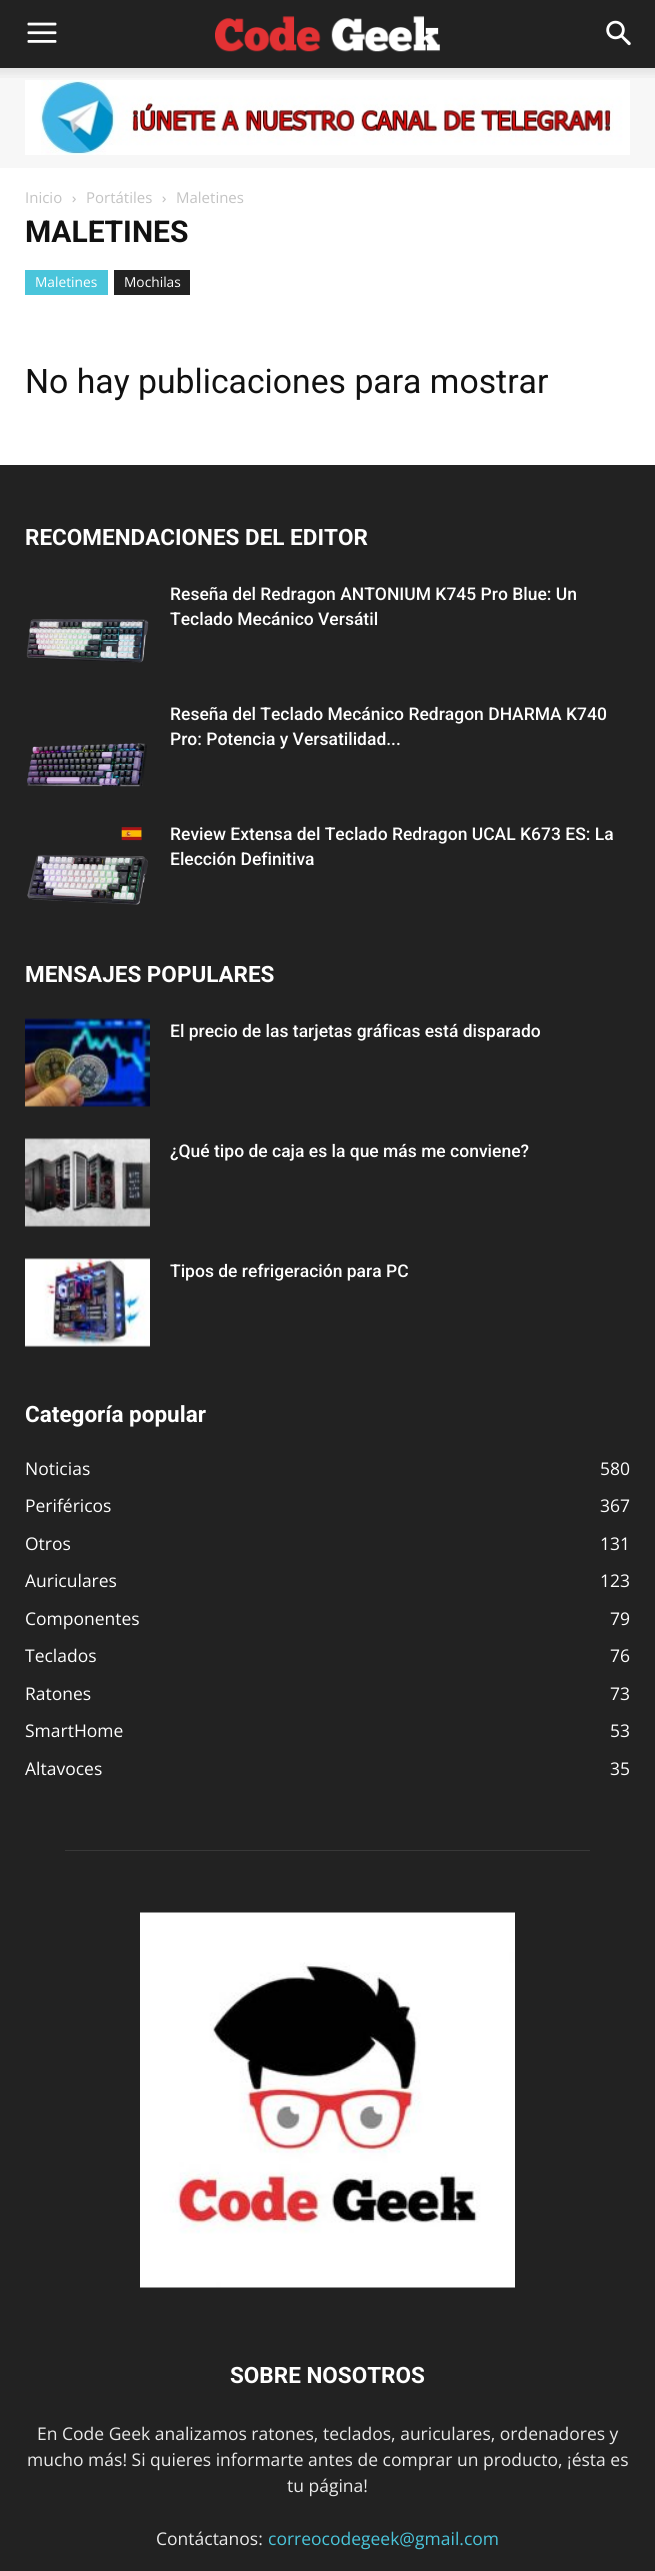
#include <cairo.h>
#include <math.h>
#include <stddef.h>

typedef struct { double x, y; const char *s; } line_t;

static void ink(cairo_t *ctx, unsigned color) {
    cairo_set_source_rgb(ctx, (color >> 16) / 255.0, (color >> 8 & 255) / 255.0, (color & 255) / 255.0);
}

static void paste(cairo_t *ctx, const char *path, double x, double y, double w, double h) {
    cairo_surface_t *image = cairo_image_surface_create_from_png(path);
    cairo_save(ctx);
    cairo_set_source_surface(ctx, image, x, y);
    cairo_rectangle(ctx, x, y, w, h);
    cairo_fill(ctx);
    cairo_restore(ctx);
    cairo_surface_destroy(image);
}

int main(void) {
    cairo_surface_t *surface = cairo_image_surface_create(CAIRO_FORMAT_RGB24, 655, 2571);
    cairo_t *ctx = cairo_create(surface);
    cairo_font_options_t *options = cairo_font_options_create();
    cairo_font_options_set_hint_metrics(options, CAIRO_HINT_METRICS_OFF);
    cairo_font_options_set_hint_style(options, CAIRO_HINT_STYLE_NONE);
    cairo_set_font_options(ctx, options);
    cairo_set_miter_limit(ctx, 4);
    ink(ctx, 0xFFFFFF);
    cairo_paint(ctx);
    ink(ctx, 0x222222);
    cairo_rectangle(ctx, 0, 0, 655, 68);
    cairo_fill(ctx);
    paste(ctx, "media/1.png", 27, 22, 30, 21);
    paste(ctx, "media/2.png", 215, 16, 225, 36);
    paste(ctx, "media/3.png", 606, 20, 25, 26);
    ink(ctx, 0xF7F7F7);
    cairo_rectangle(ctx, 0, 68, 655, 100);
    cairo_fill(ctx);
    paste(ctx, "media/4.png", 0, 68, 655, 10);
    paste(ctx, "media/5.png", 25, 80, 605, 75);
    cairo_select_font_face(ctx, "Open Sans", CAIRO_FONT_SLANT_NORMAL, CAIRO_FONT_WEIGHT_NORMAL);
    cairo_set_font_size(ctx, 15);
    ink(ctx, 0xC3C3C3);
    cairo_move_to(ctx, 25, 203);
    cairo_show_text(ctx, "Inicio");
    paste(ctx, "media/6.png", 72, 196, 4, 7);
    cairo_move_to(ctx, 86, 203);
    cairo_show_text(ctx, "Portátiles");
    paste(ctx, "media/6.png", 162, 196, 4, 7);
    cairo_move_to(ctx, 176, 203);
    cairo_show_text(ctx, "Maletines");
    cairo_select_font_face(ctx, "Roboto", CAIRO_FONT_SLANT_NORMAL, CAIRO_FONT_WEIGHT_BOLD);
    cairo_set_font_size(ctx, 30);
    ink(ctx, 0x111111);
    cairo_move_to(ctx, 25, 242);
    cairo_show_text(ctx, "MALETINES");
    ink(ctx, 0x4AC5DB);
    cairo_rectangle(ctx, 25, 270, 83, 25);
    cairo_fill(ctx);
    cairo_select_font_face(ctx, "Open Sans", CAIRO_FONT_SLANT_NORMAL, CAIRO_FONT_WEIGHT_NORMAL);
    cairo_set_font_size(ctx, 13.75);
    ink(ctx, 0xFFFFFF);
    cairo_move_to(ctx, 35, 287);
    cairo_show_text(ctx, "Maletines");
    ink(ctx, 0x222222);
    cairo_rectangle(ctx, 114, 270, 76, 25);
    cairo_fill(ctx);
    ink(ctx, 0xFFFFFF);
    cairo_move_to(ctx, 124, 287);
    cairo_show_text(ctx, "Mochilas");
    cairo_select_font_face(ctx, "Roboto", CAIRO_FONT_SLANT_NORMAL, CAIRO_FONT_WEIGHT_NORMAL);
    cairo_set_font_size(ctx, 33.75);
    ink(ctx, 0x111111);
    cairo_move_to(ctx, 25, 393);
    cairo_show_text(ctx, "No hay publicaciones para mostrar");
    ink(ctx, 0x222222);
    cairo_rectangle(ctx, 0, 465, 655, 2106);
    cairo_fill(ctx);
    cairo_select_font_face(ctx, "Roboto", CAIRO_FONT_SLANT_NORMAL, CAIRO_FONT_WEIGHT_BOLD);
    cairo_set_font_size(ctx, 22.5);
    ink(ctx, 0xFFFFFF);
    cairo_move_to(ctx, 25, 545);
    cairo_show_text(ctx, "RECOMENDACIONES DEL EDITOR");
    cairo_select_font_face(ctx, "Roboto Medium", CAIRO_FONT_SLANT_NORMAL, CAIRO_FONT_WEIGHT_NORMAL);
    cairo_set_font_size(ctx, 17.5);
    cairo_move_to(ctx, 170, 600);
    cairo_show_text(ctx, "Reseña del Redragon ANTONIUM K745 Pro Blue: Un");
    cairo_move_to(ctx, 170, 625);
    cairo_show_text(ctx, "Teclado Mecánico Versátil");
    paste(ctx, "media/7.png", 26, 619, 123, 44);
    cairo_move_to(ctx, 170, 720);
    cairo_show_text(ctx, "Reseña del Teclado Mecánico Redragon DHARMA K740");
    cairo_move_to(ctx, 170, 745);
    cairo_show_text(ctx, "Pro: Potencia y Versatilidad...");
    paste(ctx, "media/8.png", 27, 743, 120, 44);
    paste(ctx, "media/9.png", 27, 827, 121, 78);
    cairo_move_to(ctx, 170, 840);
    cairo_show_text(ctx, "Review Extensa del Teclado Redragon UCAL K673 ES: La");
    cairo_move_to(ctx, 170, 865);
    cairo_show_text(ctx, "Elección Definitiva");
    cairo_select_font_face(ctx, "Roboto", CAIRO_FONT_SLANT_NORMAL, CAIRO_FONT_WEIGHT_BOLD);
    cairo_set_font_size(ctx, 22.5);
    cairo_move_to(ctx, 25, 982);
    cairo_show_text(ctx, "MENSAJES POPULARES");
    paste(ctx, "media/10.png", 25, 1018, 125, 89);
    cairo_select_font_face(ctx, "Roboto Medium", CAIRO_FONT_SLANT_NORMAL, CAIRO_FONT_WEIGHT_NORMAL);
    cairo_set_font_size(ctx, 17.5);
    cairo_move_to(ctx, 170, 1037);
    cairo_show_text(ctx, "El precio de las tarjetas gráficas está disparado");
    paste(ctx, "media/11.png", 25, 1138, 125, 89);
    cairo_move_to(ctx, 170, 1157);
    cairo_show_text(ctx, "¿Qué tipo de caja es la que más me conviene?");
    paste(ctx, "media/12.png", 25, 1258, 125, 89);
    cairo_move_to(ctx, 170, 1277);
    cairo_show_text(ctx, "Tipos de refrigeración para PC");
    cairo_select_font_face(ctx, "Roboto", CAIRO_FONT_SLANT_NORMAL, CAIRO_FONT_WEIGHT_BOLD);
    cairo_set_font_size(ctx, 22.5);
    cairo_move_to(ctx, 25, 1422);
    cairo_show_text(ctx, "Categoría popular");
    cairo_select_font_face(ctx, "Open Sans", CAIRO_FONT_SLANT_NORMAL, CAIRO_FONT_WEIGHT_NORMAL);
    cairo_set_font_size(ctx, 17.5);
    {
        static const line_t items[] = {
            {25, 1475, "Noticias"},
            {600, 1475, "580"},
            {25, 1512, "Periféricos"},
            {600, 1512, "367"},
            {25, 1550, "Otros"},
            {600, 1550, "131"},
            {25, 1587, "Auriculares"},
            {600, 1587, "123"},
            {25, 1625, "Componentes"},
            {610, 1625, "79"},
            {25, 1662, "Teclados"},
            {610, 1662, "76"},
            {25, 1700, "Ratones"},
            {610, 1700, "73"},
            {25, 1737, "SmartHome"},
            {610, 1737, "53"},
            {25, 1775, "Altavoces"},
            {610, 1775, "35"},
        };
        for (size_t i = 0; i < sizeof items / sizeof *items; i++) {
            cairo_move_to(ctx, items[i].x, items[i].y);
            cairo_show_text(ctx, items[i].s);
        }
    }
    ink(ctx, 0x383838);
    cairo_rectangle(ctx, 65, 1850, 525, 1);
    cairo_fill(ctx);
    paste(ctx, "media/13.png", 140, 1912, 375, 376);
    cairo_select_font_face(ctx, "Roboto", CAIRO_FONT_SLANT_NORMAL, CAIRO_FONT_WEIGHT_BOLD);
    cairo_set_font_size(ctx, 22.5);
    ink(ctx, 0xFFFFFF);
    cairo_move_to(ctx, 230, 2383);
    cairo_show_text(ctx, "SOBRE NOSOTROS");
    cairo_select_font_face(ctx, "Open Sans", CAIRO_FONT_SLANT_NORMAL, CAIRO_FONT_WEIGHT_NORMAL);
    cairo_set_font_size(ctx, 17.5);
    ink(ctx, 0xEAEAEA);
    {
        static const line_t items[] = {
            {37, 2440, "En Code Geek analizamos ratones, teclados, auriculares, ordenadores y"},
            {27, 2466, "mucho más! Si quieres informarte antes de comprar un producto, ¡ésta es"},
            {287, 2492, "tu página!"},
            {156, 2545, "Contáctanos:"},
        };
        for (size_t i = 0; i < sizeof items / sizeof *items; i++) {
            cairo_move_to(ctx, items[i].x, items[i].y);
            cairo_show_text(ctx, items[i].s);
        }
    }
    ink(ctx, 0x4AC5DB);
    cairo_move_to(ctx, 268, 2545);
    cairo_show_text(ctx, "correocodegeek@gmail.com");
    cairo_surface_write_to_png(surface, "image.png");
    cairo_font_options_destroy(options);
    cairo_destroy(ctx);
    cairo_surface_destroy(surface);
    return 0;
}
